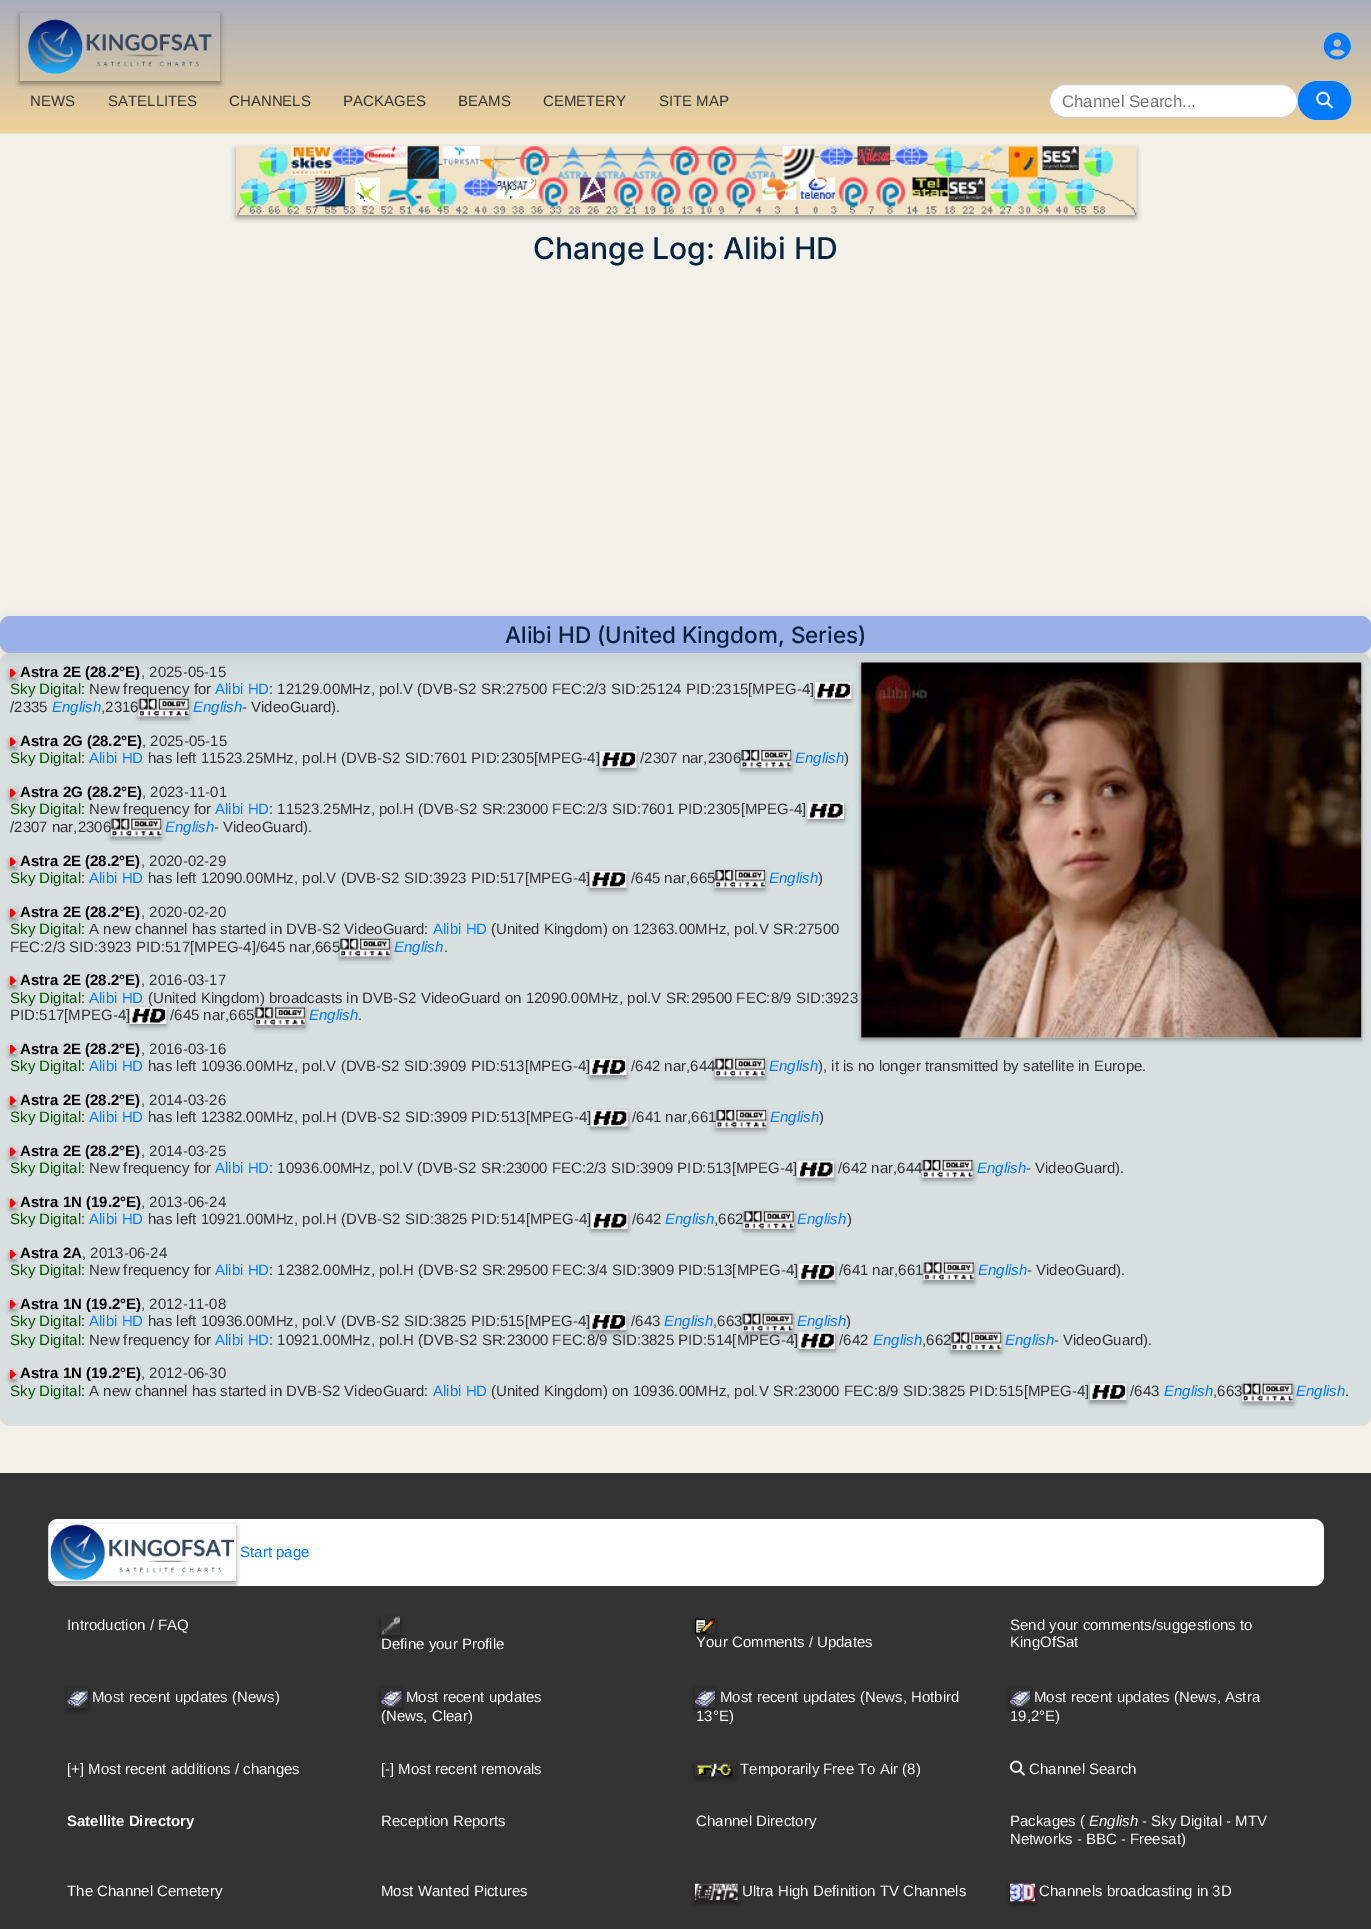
%!PS-Adobe-3.0
%%BoundingBox: 0 0 1371 1929
%%LanguageLevel: 3
%%Pages: 1
%%EndComments
%%BeginProlog
/setink { dup -16 bitshift 255 div exch dup -8 bitshift 255 and 255 div exch 255 and 255 div setrgbcolor } def
/usefont { [ exch dup neg 0 0 3 -1 roll 0 0 ] selectfont } def
/setalpha { dup .setfillconstantalpha .setstrokeconstantalpha } def
/rrect { 5 dict begin { /r /h /w /y /x } { exch def } forall
  x r add y moveto x w add y 2 copy h add r arct x w add y h add x 1 index r arct
  x y h add x y r arct x y 2 copy exch w add exch r arct closepath end } def
/softshadow { 12 dict begin { /a /b /q /h /w /y /x } { exch def } forall gsave /was 0 def
  9 -2 -9 { dup b mul 4 div /e exch def 1 sub .425 mul 2.718 exch exp 1 add a .99 .min exch div /now exch def
    1 1 now sub 1 was sub div sub setalpha /was now def
    w h .min e 2 mul add 0 gt { x e sub y e sub w e 2 mul add h e 2 mul add
      q e add b .6 mul add w h .min 2 div e add .min 0 .max rrect fill } if } for grestore end } def
/drawimage { 5 dict begin { /h /w /y /x /name } { exch def } forall
  gsave x y translate w h scale
  w h 8 [w 0 0 h 0 0] name (r) file false 3 colorimage grestore end } def
%%EndProlog
%%BeginSetup
<< /PageSize [1371 1929] /PageUsesTransparency true >> setpagedevice
%%EndSetup
%%Page: 1 1
0 .pushpdf14devicefilter
0 1929 translate 1 -1 scale
4 setmiterlimit
16#FFFFFF setink
0 0 1371 1929 rectfill
gsave 0 0 moveto 1371 0 lineto 1371 133 lineto 0 133 lineto closepath clip newpath
<< /ShadingType 2 /ColorSpace /DeviceRGB /Coords [686 0 686 133] /Extend [true true] /Function << /FunctionType 2 /Domain [0 1] /C0 [0.663 0.686 0.741] /C1 [0.945 0.824 0.6] /N 1 >> >> shfill grestore
16#DDDDDD setink
0 133 1371 1 rectfill
gsave
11 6 moveto 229 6 lineto 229 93 lineto 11 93 lineto closepath 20 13 moveto 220 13 lineto 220 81 lineto 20 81 lineto closepath eoclip newpath
16#000000 setink
20 15 200 69 0 2.5 0.35 softshadow
grestore
(img1.raw) 27 19 185 56 drawimage
(img2.raw) 1323 32 28 28 drawimage
/LiberationSans-Regular 15 usefont
16#333333 setink
[
    [(NEWS) 30 106]
    [(SATELLITES) 108 106]
    [(CHANNELS) 229 106]
    [(PACKAGES) 343 106]
    [(BEAMS) 458 106]
    [(CEMETERY) 543 106]
    [(SITE MAP) 659 106]
] { aload pop moveto show } forall
16#FFFFFF setink
1049.5 84.5 248 33 16.5 rrect gsave fill grestore
16#CCCCCC setink
stroke
/LiberationSans-Regular 16.75 usefont
16#757575 setink
1062 107 moveto (Channel Search...) show
16#007BFF setink
1298 81 53 39 19.5 rrect fill
(img3.raw) 1316 91 17 18 drawimage
16#F3F0E9 setink
0 134 1371 1339 rectfill
16#000000 setink
236 149 900 69 0 2.5 0.35 softshadow
(img4.raw) 236 146 901 69 drawimage
/Inter-Medium 30 usefont
16#042242 setink
533 259 moveto (Change Log: Alibi HD) show
16#D7DFDF setink
0 653 1371 773 10 rrect fill
gsave
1 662 moveto 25 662 lineto 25 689 lineto 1 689 lineto closepath 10 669 moveto 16 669 lineto 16 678 lineto 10 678 lineto closepath eoclip newpath
16#000000 setink
10 671 6 9 0 2.5 0.35 softshadow
grestore
(img5.raw) 10 668 7 10 drawimage
16#000000 setink
861 665 500 375 0 2.5 0.35 softshadow
(img8.raw) 861 662 501 376 drawimage
0 621 1371 37 10 7.5 0.08 softshadow
16#99B1E7 setink
0 616 1371 37 10 rrect fill
/Inter-Medium 22.5 usefont
16#042242 setink
505 643 moveto (Alibi HD \(United Kingdom, Series\)) show
/LiberationSans-Bold 15 usefont
16#000000 setink
20 677 moveto (Astra 2E \(28.2°E\)) show
/LiberationSans-Regular 15 usefont
16#333333 setink
141 677 moveto (, 2025-05-15) show
16#000000 setink
815 685 36 16 0 2.5 0.35 softshadow
16#005200 setink
10 694 moveto (Sky Digital) show
16#333333 setink
81 694 moveto (: New frequency for) show
16#007BFF setink
215 694 moveto (Alibi HD) show
16#333333 setink
269 694 moveto (: 12129.00MHz, pol.V \(DVB-S2 SR:27500 FEC:2/3 SID:25124 PID:2315[MPEG-4]) show
(img6.raw) 815 682 37 17 drawimage
16#000000 setink
139 701 50 18 0 2.5 0.35 softshadow
16#333333 setink
10 712 moveto (/2335) show
/LiberationSans-Italic 15 usefont
16#007BFF setink
52 712 moveto (English) show
/LiberationSans-Regular 15 usefont
16#333333 setink
101 712 moveto (,2316) show
(img7.raw) 138 698 51 19 drawimage
/LiberationSans-Italic 15 usefont
16#007BFF setink
193 712 moveto (English) show
/LiberationSans-Regular 15 usefont
16#333333 setink
242 712 moveto (- VideoGuard\).) show
gsave
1 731 moveto 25 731 lineto 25 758 lineto 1 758 lineto closepath 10 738 moveto 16 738 lineto 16 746 lineto 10 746 lineto closepath eoclip newpath
16#000000 setink
10 740 6 9 0 2.5 0.35 softshadow
grestore
/LiberationSans-Bold 15 usefont
16#000000 setink
20 746 moveto (Astra 2G \(28.2°E\)) show
/LiberationSans-Regular 15 usefont
16#333333 setink
142 746 moveto (, 2025-05-15) show
(img9.raw) 10 737 7 10 drawimage
16#000000 setink
600 754 36 16 0 2.5 0.35 softshadow
741 753 50 17 0 2.5 0.35 softshadow
16#005200 setink
10 763 moveto (Sky Digital) show
16#333333 setink
81 763 moveto (:) show
16#007BFF setink
89 763 moveto (Alibi HD) show
16#333333 setink
148 763 moveto (has left 11523.25MHz, pol.H \(DVB-S2 SID:7601 PID:2305[MPEG-4]) show
(img10.raw) 600 751 37 17 drawimage
640 763 moveto (/2307 nar,2306) show
(img11.raw) 741 750 51 18 drawimage
/LiberationSans-Italic 15 usefont
16#007BFF setink
795 763 moveto (English) show
/LiberationSans-Regular 15 usefont
16#333333 setink
844 763 moveto (\)) show
gsave
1 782 moveto 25 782 lineto 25 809 lineto 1 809 lineto closepath 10 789 moveto 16 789 lineto 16 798 lineto 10 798 lineto closepath eoclip newpath
16#000000 setink
10 791 6 9 0 2.5 0.35 softshadow
grestore
/LiberationSans-Bold 15 usefont
16#000000 setink
20 797 moveto (Astra 2G \(28.2°E\)) show
/LiberationSans-Regular 15 usefont
16#333333 setink
142 797 moveto (, 2023-11-01) show
(img5.raw) 10 788 7 10 drawimage
16#000000 setink
808 805 36 16 0 2.5 0.35 softshadow
16#005200 setink
10 814 moveto (Sky Digital) show
16#333333 setink
81 814 moveto (: New frequency for) show
16#007BFF setink
215 814 moveto (Alibi HD) show
16#333333 setink
269 814 moveto (: 11523.25MHz, pol.H \(DVB-S2 SR:23000 FEC:2/3 SID:7601 PID:2305[MPEG-4]) show
(img12.raw) 807 802 37 17 drawimage
16#000000 setink
111 821 50 18 0 2.5 0.35 softshadow
16#333333 setink
10 832 moveto (/2307 nar,2306) show
(img13.raw) 111 818 51 19 drawimage
/LiberationSans-Italic 15 usefont
16#007BFF setink
165 832 moveto (English) show
/LiberationSans-Regular 15 usefont
16#333333 setink
214 832 moveto (- VideoGuard\).) show
gsave
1 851 moveto 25 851 lineto 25 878 lineto 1 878 lineto closepath 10 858 moveto 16 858 lineto 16 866 lineto 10 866 lineto closepath eoclip newpath
16#000000 setink
10 860 6 9 0 2.5 0.35 softshadow
grestore
/LiberationSans-Bold 15 usefont
16#000000 setink
20 866 moveto (Astra 2E \(28.2°E\)) show
/LiberationSans-Regular 15 usefont
16#333333 setink
141 866 moveto (, 2020-02-29) show
(img9.raw) 10 857 7 10 drawimage
16#000000 setink
590 874 36 16 0 2.5 0.35 softshadow
715 873 50 17 0 2.5 0.35 softshadow
16#005200 setink
10 883 moveto (Sky Digital) show
16#333333 setink
81 883 moveto (:) show
16#007BFF setink
89 883 moveto (Alibi HD) show
16#333333 setink
148 883 moveto (has left 12090.00MHz, pol.V \(DVB-S2 SID:3923 PID:517[MPEG-4]) show
(img10.raw) 590 871 37 17 drawimage
631 883 moveto (/645 nar,665) show
(img14.raw) 715 870 50 18 drawimage
/LiberationSans-Italic 15 usefont
16#007BFF setink
769 883 moveto (English) show
/LiberationSans-Regular 15 usefont
16#333333 setink
818 883 moveto (\)) show
gsave
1 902 moveto 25 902 lineto 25 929 lineto 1 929 lineto closepath 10 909 moveto 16 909 lineto 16 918 lineto 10 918 lineto closepath eoclip newpath
16#000000 setink
10 911 6 9 0 2.5 0.35 softshadow
grestore
/LiberationSans-Bold 15 usefont
16#000000 setink
20 917 moveto (Astra 2E \(28.2°E\)) show
/LiberationSans-Regular 15 usefont
16#333333 setink
141 917 moveto (, 2020-02-20) show
(img5.raw) 10 908 7 10 drawimage
16#005200 setink
10 934 moveto (Sky Digital) show
16#333333 setink
81 934 moveto (: A new channel has started in DVB-S2 VideoGuard:) show
16#007BFF setink
433 934 moveto (Alibi HD) show
16#333333 setink
491 934 moveto (\(United Kingdom\) on 12363.00MHz, pol.V SR:27500) show
16#000000 setink
340 941 50 18 0 2.5 0.35 softshadow
16#333333 setink
10 952 moveto (FEC:2/3 SID:3923 PID:517[MPEG-4]/645 nar,665) show
(img15.raw) 340 938 50 19 drawimage
/LiberationSans-Italic 15 usefont
16#007BFF setink
394 952 moveto (English) show
/LiberationSans-Regular 15 usefont
16#333333 setink
444 952 moveto (.) show
gsave
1 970 moveto 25 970 lineto 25 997 lineto 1 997 lineto closepath 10 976 moveto 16 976 lineto 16 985 lineto 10 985 lineto closepath eoclip newpath
16#000000 setink
10 979 6 9 0 2.5 0.35 softshadow
grestore
/LiberationSans-Bold 15 usefont
16#000000 setink
20 985 moveto (Astra 2E \(28.2°E\)) show
/LiberationSans-Regular 15 usefont
16#333333 setink
141 985 moveto (, 2016-03-17) show
(img16.raw) 10 976 7 9 drawimage
16#005200 setink
10 1003 moveto (Sky Digital) show
16#333333 setink
81 1003 moveto (:) show
16#007BFF setink
89 1003 moveto (Alibi HD) show
16#333333 setink
148 1003 moveto (\(United Kingdom\) broadcasts in DVB-S2 VideoGuard on 12090.00MHz, pol.V SR:29500 FEC:8/9 SID:3923) show
16#000000 setink
130 1010 36 16 0 2.5 0.35 softshadow
255 1010 50 18 0 2.5 0.35 softshadow
16#333333 setink
10 1020 moveto (PID:517[MPEG-4]) show
(img17.raw) 130 1007 37 17 drawimage
170 1020 moveto (/645 nar,665) show
(img18.raw) 255 1007 50 18 drawimage
/LiberationSans-Italic 15 usefont
16#007BFF setink
309 1020 moveto (English) show
/LiberationSans-Regular 15 usefont
16#333333 setink
358 1020 moveto (.) show
gsave
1 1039 moveto 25 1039 lineto 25 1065 lineto 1 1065 lineto closepath 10 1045 moveto 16 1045 lineto 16 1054 lineto 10 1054 lineto closepath eoclip newpath
16#000000 setink
10 1048 6 8 0 2.5 0.35 softshadow
grestore
/LiberationSans-Bold 15 usefont
16#000000 setink
20 1054 moveto (Astra 2E \(28.2°E\)) show
/LiberationSans-Regular 15 usefont
16#333333 setink
141 1054 moveto (, 2016-03-16) show
(img19.raw) 10 1045 7 9 drawimage
16#000000 setink
590 1061 36 17 0 2.5 0.35 softshadow
715 1061 50 18 0 2.5 0.35 softshadow
16#005200 setink
10 1071 moveto (Sky Digital) show
16#333333 setink
81 1071 moveto (:) show
16#007BFF setink
89 1071 moveto (Alibi HD) show
16#333333 setink
148 1071 moveto (has left 10936.00MHz, pol.V \(DVB-S2 SID:3909 PID:513[MPEG-4]) show
(img20.raw) 590 1058 37 17 drawimage
631 1071 moveto (/642 nar,644) show
(img21.raw) 715 1058 50 19 drawimage
/LiberationSans-Italic 15 usefont
16#007BFF setink
769 1071 moveto (English) show
/LiberationSans-Regular 15 usefont
16#333333 setink
818 1071 moveto (\), it is no longer transmitted by satellite in Europe.) show
gsave
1 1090 moveto 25 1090 lineto 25 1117 lineto 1 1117 lineto closepath 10 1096 moveto 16 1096 lineto 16 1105 lineto 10 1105 lineto closepath eoclip newpath
16#000000 setink
10 1099 6 9 0 2.5 0.35 softshadow
grestore
/LiberationSans-Bold 15 usefont
16#000000 setink
20 1105 moveto (Astra 2E \(28.2°E\)) show
/LiberationSans-Regular 15 usefont
16#333333 setink
141 1105 moveto (, 2014-03-26) show
(img16.raw) 10 1096 7 9 drawimage
16#000000 setink
591 1113 37 16 0 2.5 0.35 softshadow
716 1113 50 17 0 2.5 0.35 softshadow
16#005200 setink
10 1122 moveto (Sky Digital) show
16#333333 setink
81 1122 moveto (:) show
16#007BFF setink
89 1122 moveto (Alibi HD) show
16#333333 setink
148 1122 moveto (has left 12382.00MHz, pol.H \(DVB-S2 SID:3909 PID:513[MPEG-4]) show
(img22.raw) 591 1110 37 17 drawimage
632 1122 moveto (/641 nar,661) show
(img11.raw) 716 1110 51 18 drawimage
/LiberationSans-Italic 15 usefont
16#007BFF setink
770 1122 moveto (English) show
/LiberationSans-Regular 15 usefont
16#333333 setink
819 1122 moveto (\)) show
gsave
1 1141 moveto 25 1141 lineto 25 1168 lineto 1 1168 lineto closepath 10 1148 moveto 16 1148 lineto 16 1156 lineto 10 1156 lineto closepath eoclip newpath
16#000000 setink
10 1150 6 9 0 2.5 0.35 softshadow
grestore
/LiberationSans-Bold 15 usefont
16#000000 setink
20 1156 moveto (Astra 2E \(28.2°E\)) show
/LiberationSans-Regular 15 usefont
16#333333 setink
141 1156 moveto (, 2014-03-25) show
(img9.raw) 10 1147 7 10 drawimage
16#000000 setink
798 1164 36 16 0 2.5 0.35 softshadow
923 1163 50 17 0 2.5 0.35 softshadow
16#005200 setink
10 1173 moveto (Sky Digital) show
16#333333 setink
81 1173 moveto (: New frequency for) show
16#007BFF setink
215 1173 moveto (Alibi HD) show
16#333333 setink
269 1173 moveto (: 10936.00MHz, pol.V \(DVB-S2 SR:23000 FEC:2/3 SID:3909 PID:513[MPEG-4]) show
(img23.raw) 797 1161 37 17 drawimage
838 1173 moveto (/642 nar,644) show
(img24.raw) 922 1160 51 18 drawimage
/LiberationSans-Italic 15 usefont
16#007BFF setink
977 1173 moveto (English) show
/LiberationSans-Regular 15 usefont
16#333333 setink
1026 1173 moveto (- VideoGuard\).) show
gsave
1 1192 moveto 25 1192 lineto 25 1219 lineto 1 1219 lineto closepath 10 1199 moveto 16 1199 lineto 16 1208 lineto 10 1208 lineto closepath eoclip newpath
16#000000 setink
10 1201 6 9 0 2.5 0.35 softshadow
grestore
/LiberationSans-Bold 15 usefont
16#000000 setink
20 1207 moveto (Astra 1N \(19.2°E\)) show
/LiberationSans-Regular 15 usefont
16#333333 setink
141 1207 moveto (, 2013-06-24) show
(img5.raw) 10 1198 7 10 drawimage
16#000000 setink
591 1215 37 16 0 2.5 0.35 softshadow
744 1214 50 17 0 2.5 0.35 softshadow
16#005200 setink
10 1224 moveto (Sky Digital) show
16#333333 setink
81 1224 moveto (:) show
16#007BFF setink
89 1224 moveto (Alibi HD) show
16#333333 setink
148 1224 moveto (has left 10921.00MHz, pol.H \(DVB-S2 SID:3825 PID:514[MPEG-4]) show
(img25.raw) 591 1212 37 17 drawimage
632 1224 moveto (/642) show
/LiberationSans-Italic 15 usefont
16#007BFF setink
665 1224 moveto (English) show
/LiberationSans-Regular 15 usefont
16#333333 setink
714 1224 moveto (,662) show
(img26.raw) 743 1211 51 18 drawimage
/LiberationSans-Italic 15 usefont
16#007BFF setink
797 1224 moveto (English) show
/LiberationSans-Regular 15 usefont
16#333333 setink
847 1224 moveto (\)) show
gsave
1 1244 moveto 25 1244 lineto 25 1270 lineto 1 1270 lineto closepath 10 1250 moveto 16 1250 lineto 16 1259 lineto 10 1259 lineto closepath eoclip newpath
16#000000 setink
10 1253 6 8 0 2.5 0.35 softshadow
grestore
/LiberationSans-Bold 15 usefont
16#000000 setink
20 1258 moveto (Astra 2A) show
/LiberationSans-Regular 15 usefont
16#333333 setink
82 1258 moveto (, 2013-06-24) show
(img19.raw) 10 1250 7 9 drawimage
16#000000 setink
799 1266 36 17 0 2.5 0.35 softshadow
924 1265 50 18 0 2.5 0.35 softshadow
16#005200 setink
10 1275 moveto (Sky Digital) show
16#333333 setink
81 1275 moveto (: New frequency for) show
16#007BFF setink
215 1275 moveto (Alibi HD) show
16#333333 setink
269 1275 moveto (: 12382.00MHz, pol.H \(DVB-S2 SR:29500 FEC:3/4 SID:3909 PID:513[MPEG-4]) show
(img27.raw) 798 1263 37 17 drawimage
839 1275 moveto (/641 nar,661) show
(img28.raw) 923 1262 51 18 drawimage
/LiberationSans-Italic 15 usefont
16#007BFF setink
978 1275 moveto (English) show
/LiberationSans-Regular 15 usefont
16#333333 setink
1027 1275 moveto (- VideoGuard\).) show
gsave
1 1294 moveto 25 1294 lineto 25 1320 lineto 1 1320 lineto closepath 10 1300 moveto 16 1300 lineto 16 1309 lineto 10 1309 lineto closepath eoclip newpath
16#000000 setink
10 1303 6 8 0 2.5 0.35 softshadow
grestore
/LiberationSans-Bold 15 usefont
16#000000 setink
20 1309 moveto (Astra 1N \(19.2°E\)) show
/LiberationSans-Regular 15 usefont
16#333333 setink
141 1309 moveto (, 2012-11-08) show
(img19.raw) 10 1300 7 9 drawimage
16#000000 setink
590 1316 36 17 0 2.5 0.35 softshadow
743 1316 50 18 0 2.5 0.35 softshadow
16#005200 setink
10 1326 moveto (Sky Digital) show
16#333333 setink
81 1326 moveto (:) show
16#007BFF setink
89 1326 moveto (Alibi HD) show
16#333333 setink
148 1326 moveto (has left 10936.00MHz, pol.V \(DVB-S2 SID:3825 PID:515[MPEG-4]) show
(img20.raw) 590 1313 37 17 drawimage
631 1326 moveto (/643) show
/LiberationSans-Italic 15 usefont
16#007BFF setink
664 1326 moveto (English) show
/LiberationSans-Regular 15 usefont
16#333333 setink
713 1326 moveto (,663) show
(img29.raw) 742 1313 51 19 drawimage
/LiberationSans-Italic 15 usefont
16#007BFF setink
797 1326 moveto (English) show
/LiberationSans-Regular 15 usefont
16#333333 setink
846 1326 moveto (\)) show
16#000000 setink
799 1335 36 16 0 2.5 0.35 softshadow
951 1335 50 18 0 2.5 0.35 softshadow
16#005200 setink
10 1345 moveto (Sky Digital) show
16#333333 setink
81 1345 moveto (: New frequency for) show
16#007BFF setink
215 1345 moveto (Alibi HD) show
16#333333 setink
269 1345 moveto (: 10921.00MHz, pol.H \(DVB-S2 SR:23000 FEC:8/9 SID:3825 PID:514[MPEG-4]) show
(img30.raw) 798 1332 37 17 drawimage
839 1345 moveto (/642) show
/LiberationSans-Italic 15 usefont
16#007BFF setink
873 1345 moveto (English) show
/LiberationSans-Regular 15 usefont
16#333333 setink
922 1345 moveto (,662) show
(img31.raw) 951 1332 51 18 drawimage
/LiberationSans-Italic 15 usefont
16#007BFF setink
1005 1345 moveto (English) show
/LiberationSans-Regular 15 usefont
16#333333 setink
1054 1345 moveto (- VideoGuard\).) show
gsave
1 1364 moveto 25 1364 lineto 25 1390 lineto 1 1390 lineto closepath 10 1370 moveto 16 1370 lineto 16 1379 lineto 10 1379 lineto closepath eoclip newpath
16#000000 setink
10 1373 6 8 0 2.5 0.35 softshadow
grestore
/LiberationSans-Bold 15 usefont
16#000000 setink
20 1378 moveto (Astra 1N \(19.2°E\)) show
/LiberationSans-Regular 15 usefont
16#333333 setink
141 1378 moveto (, 2012-06-30) show
(img19.raw) 10 1370 7 9 drawimage
16#000000 setink
1090 1386 36 17 0 2.5 0.35 softshadow
1243 1386 50 18 0 2.5 0.35 softshadow
16#005200 setink
10 1396 moveto (Sky Digital) show
16#333333 setink
81 1396 moveto (: A new channel has started in DVB-S2 VideoGuard:) show
16#007BFF setink
433 1396 moveto (Alibi HD) show
16#333333 setink
491 1396 moveto (\(United Kingdom\) on 10936.00MHz, pol.V SR:23000 FEC:8/9 SID:3825 PID:515[MPEG-4]) show
(img20.raw) 1090 1383 37 17 drawimage
1130 1396 moveto (/643) show
/LiberationSans-Italic 15 usefont
16#007BFF setink
1164 1396 moveto (English) show
/LiberationSans-Regular 15 usefont
16#333333 setink
1213 1396 moveto (,663) show
(img32.raw) 1242 1383 51 19 drawimage
/LiberationSans-Italic 15 usefont
16#007BFF setink
1296 1396 moveto (English) show
/LiberationSans-Regular 15 usefont
16#333333 setink
1345 1396 moveto (.) show
0 1473 1371 456 rectfill
16#FFFFFF setink
48 1519 1276 67 10 rrect fill
gsave
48 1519 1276 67 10 rrect clip newpath
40 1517 moveto 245 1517 lineto 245 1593 lineto 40 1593 lineto closepath 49 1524 moveto 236 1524 lineto 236 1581 lineto 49 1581 lineto closepath eoclip newpath
16#000000 setink
49 1526 187 58 0 2.5 0.35 softshadow
grestore
(img33.raw) 50 1524 185 57 drawimage
16#007BFF setink
240 1557 moveto (Start page) show
16#FFFFFF setink
67 1630 moveto (Introduction / FAQ) show
gsave
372 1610 moveto 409 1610 lineto 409 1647 lineto 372 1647 lineto closepath 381 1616 moveto 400 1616 lineto 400 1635 lineto 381 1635 lineto closepath eoclip newpath
16#000000 setink
381 1619 19 19 0 2.5 0.35 softshadow
grestore
(img34.raw) 381 1616 19 19 drawimage
381 1649 moveto (Define your Profile) show
gsave
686 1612 moveto 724 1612 lineto 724 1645 lineto 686 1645 lineto closepath 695 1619 moveto 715 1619 lineto 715 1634 lineto 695 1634 lineto closepath eoclip newpath
16#000000 setink
695 1621 20 15 0 2.5 0.35 softshadow
grestore
(img35.raw) 695 1618 20 16 drawimage
[
    [(Your Comments / Updates) 696 1647]
    [(Send your comments/suggestions to) 1010 1630]
    [(KingOfSat) 1010 1647]
] { aload pop moveto show } forall
gsave
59 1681 moveto 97 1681 lineto 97 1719 lineto 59 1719 lineto closepath 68 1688 moveto 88 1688 lineto 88 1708 lineto 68 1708 lineto closepath eoclip newpath
16#000000 setink
68 1690 20 20 0 2.5 0.35 softshadow
grestore
(img36.raw) 67 1691 21 16 drawimage
92 1702 moveto (Most recent updates \(News\)) show
gsave
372 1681 moveto 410 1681 lineto 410 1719 lineto 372 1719 lineto closepath 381 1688 moveto 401 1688 lineto 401 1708 lineto 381 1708 lineto closepath eoclip newpath
16#000000 setink
381 1690 20 20 0 2.5 0.35 softshadow
grestore
(img37.raw) 381 1691 21 16 drawimage
406 1702 moveto (Most recent updates) show
381 1721 moveto (\(News, Clear\)) show
gsave
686 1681 moveto 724 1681 lineto 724 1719 lineto 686 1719 lineto closepath 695 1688 moveto 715 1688 lineto 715 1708 lineto 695 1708 lineto closepath eoclip newpath
16#000000 setink
695 1690 20 20 0 2.5 0.35 softshadow
grestore
(img38.raw) 695 1691 20 16 drawimage
720 1702 moveto (Most recent updates \(News, Hotbird) show
696 1721 moveto (13°E\)) show
gsave
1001 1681 moveto 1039 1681 lineto 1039 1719 lineto 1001 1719 lineto closepath 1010 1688 moveto 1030 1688 lineto 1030 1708 lineto 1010 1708 lineto closepath eoclip newpath
16#000000 setink
1010 1690 20 20 0 2.5 0.35 softshadow
grestore
(img39.raw) 1010 1691 20 16 drawimage
[
    [(Most recent updates \(News, Astra) 1034 1702]
    [(19,2°E\)) 1010 1721]
    [([+] Most recent additions / changes) 67 1774]
    [([-] Most recent removals) 381 1774]
] { aload pop moveto show } forall
gsave
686 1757 moveto 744 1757 lineto 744 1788 lineto 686 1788 lineto closepath 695 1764 moveto 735 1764 lineto 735 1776 lineto 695 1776 lineto closepath eoclip newpath
16#000000 setink
695 1766 40 13 0 2.5 0.35 softshadow
grestore
(img40.raw) 697 1763 36 14 drawimage
740 1774 moveto (Temporarily Free To Air \(8\)) show
(img41.raw) 1010 1760 15 16 drawimage
1029 1774 moveto (Channel Search) show
/LiberationSans-Bold 15 usefont
67 1826 moveto (Satellite Directory) show
/LiberationSans-Regular 15 usefont
[
    [(Reception Reports) 381 1826]
    [(Channel Directory) 696 1826]
    [(Packages \() 1010 1826]
] { aload pop moveto show } forall
/LiberationSans-Italic 15 usefont
1089 1826 moveto (English) show
/LiberationSans-Regular 15 usefont
[
    [(- Sky Digital - MTV) 1142 1826]
    [(Networks - BBC - Freesat\)) 1010 1844]
    [(The Channel Cemetery) 67 1896]
    [(Most Wanted Pictures) 381 1896]
] { aload pop moveto show } forall
16#000000 setink
695 1886 43 17 0 2.5 0.35 softshadow
(img42.raw) 695 1883 43 17 drawimage
16#FFFFFF setink
742 1896 moveto (Ultra High Definition TV Channels) show
16#000000 setink
1010 1886 25 18 0 2.5 0.35 softshadow
(img43.raw) 1010 1883 25 19 drawimage
16#FFFFFF setink
1039 1896 moveto (Channels broadcasting in 3D) show
.poppdf14devicefilter showpage
%%EOF
